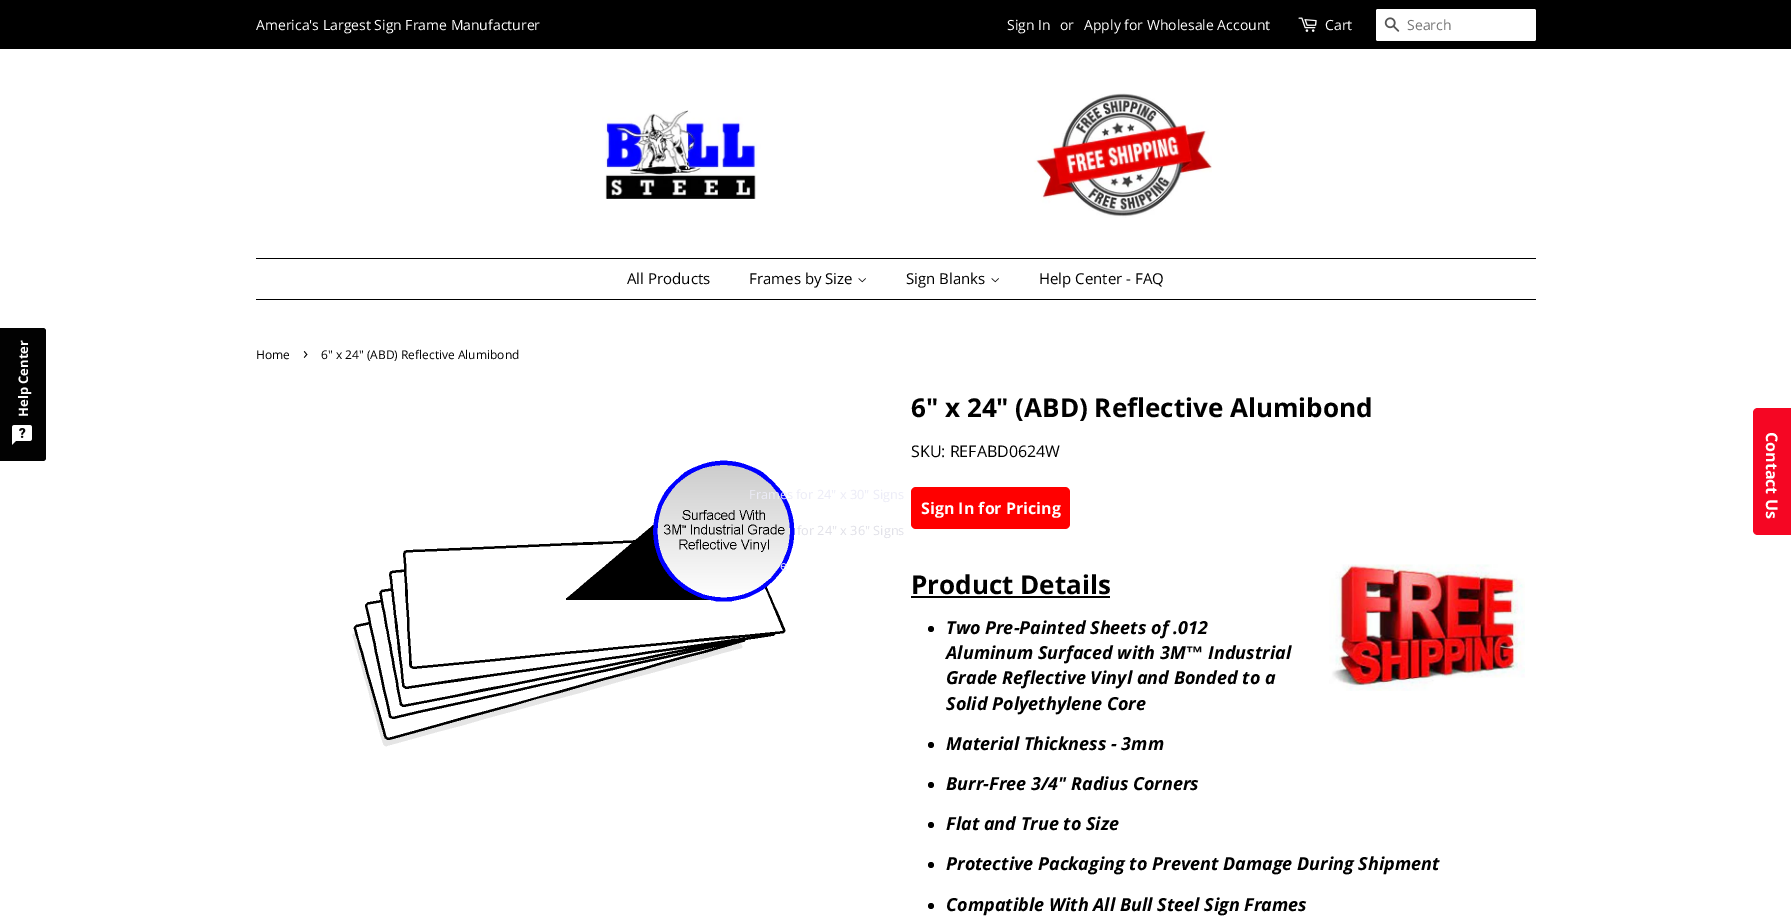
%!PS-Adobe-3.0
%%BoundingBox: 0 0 1791 922
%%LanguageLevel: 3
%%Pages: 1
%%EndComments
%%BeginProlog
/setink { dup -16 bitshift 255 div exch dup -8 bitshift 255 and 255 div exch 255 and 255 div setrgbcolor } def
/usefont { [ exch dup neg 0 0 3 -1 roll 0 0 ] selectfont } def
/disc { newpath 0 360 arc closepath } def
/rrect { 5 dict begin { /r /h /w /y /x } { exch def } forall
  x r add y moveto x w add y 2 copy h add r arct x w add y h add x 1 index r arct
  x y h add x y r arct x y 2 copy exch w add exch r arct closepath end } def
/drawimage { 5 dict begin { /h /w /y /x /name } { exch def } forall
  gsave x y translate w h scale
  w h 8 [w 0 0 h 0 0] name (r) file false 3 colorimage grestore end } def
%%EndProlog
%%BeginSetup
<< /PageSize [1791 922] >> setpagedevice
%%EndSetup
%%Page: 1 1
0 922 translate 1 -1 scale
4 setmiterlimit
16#FFFFFF setink
0 0 1791 922 rectfill
16#020202 setink
0 328 moveto 43 328 lineto 44.5 328 46 329.5 46 331 curveto 46 458 lineto 46 459.5 44.5 461 43 461 curveto 0 461 lineto closepath fill
/OpenSans-Bold 13 usefont
16#FFFFFF setink
gsave 28 417 translate -90 rotate 0 0 moveto (Help Center) show grestore
(img1.raw) 12 425 20 20 drawimage
16#000000 setink
0 0 1791 49 rectfill
/OpenSans-Regular 14 usefont
16#FFFFFF setink
[
    [(America's Largest Sign Frame Manufacturer) 256 30]
    [(Sign In) 1007 30]
    [(or) 1060 30]
    [(Apply for Wholesale Account) 1084 30]
] { aload pop moveto show } forall
(img2.raw) 1298 17 19 15 drawimage
1325 30 moveto (Cart) show
1376 9 160 32 2 rrect fill
(img3.raw) 1384 17 16 15 drawimage
16#757575 setink
1407 30 moveto (Search) show
(img4.raw) 602 93 610 125 drawimage
16#000000 setink
256 258 1280 1 rectfill
256 299 1280 1 rectfill
/OpenSans-Regular 15 usefont
627 284 moveto (All Products) show
749 284 moveto (Frames by Size) show
(img5.raw) 858 278 8 5 drawimage
(img6.raw) 352 460 443 287 drawimage
/OpenSans-Regular 12.75 usefont
16#ECECF7 setink
749 499 moveto (Frames for 24" x 30" Signs) show
16#E1E1E8 setink
797 535 moveto (for 24" x 36" Signs) show
16#ECECF7 setink
780 570 moveto (e) show
/OpenSans-Regular 15 usefont
16#000000 setink
906 284 moveto (Sign Blanks) show
(img5.raw) 991 278 8 5 drawimage
1039 284 moveto (Help Center - FAQ) show
/OpenSans-Regular 12 usefont
256 359 moveto (Home) show
/OpenSans-Regular 17 usefont
303 359 moveto (›) show
/OpenSans-Regular 12 usefont
321 359 moveto (6" x 24" \(ABD\) Reflective Alumibond) show
/OpenSans-Bold 26 usefont
911 417 moveto (6" x 24" \(ABD\) Reflective Alumibond) show
/OpenSans-Regular 16 usefont
911 457 moveto (SKU: REFABD0624W) show
16#FF0000 setink
911 487 159 42 5 rrect fill
/OpenSans-Bold 16 usefont
16#FFFFFF setink
921 514 moveto (Sign In for Pricing) show
/OpenSans-Bold 26 usefont
16#000000 setink
911 594 moveto (Product Details) show
911 596 199 2 rectfill
(img7.raw) 1329 564 196 127 drawimage
931 629 3 disc fill
/OpenSans-BoldItalic 18 usefont
946 634 moveto (Two Pre-Painted Sheets of .012) show
946 659 moveto (Aluminum Surfaced with 3M) show
/LiberationSans-BoldItalic 18 usefont
1185 659 moveto (™) show
/OpenSans-BoldItalic 18 usefont
[
    [(Industrial) 1208 659]
    [(Grade Reflective Vinyl and Bonded to a) 946 684]
    [(Solid Polyethylene Core) 946 710]
] { aload pop moveto show } forall
931 745 3 disc fill
946 750 moveto (Material Thickness - 3mm) show
931 785 3 disc fill
946 790 moveto (Burr-Free 3/4" Radius Corners) show
931 825 3 disc fill
946 830 moveto (Flat and True to Size) show
931 865 3 disc fill
946 870 moveto (Protective Packaging to Prevent Damage During Shipment) show
931 906 3 disc fill
946 911 moveto (Compatible With All Bull Steel Sign Frames) show
16#F50623 setink
1791 408 moveto 1791 535 lineto 1758 535 lineto 1755 535 1753 533 1753 530 curveto 1753 413 lineto 1753 410 1755 408 1758 408 curveto closepath fill
/OpenSans-Bold 16 usefont
16#FFFFFF setink
gsave 1766 432 translate 90 rotate 0 0 moveto (Contact Us) show grestore
showpage
%%EOF
